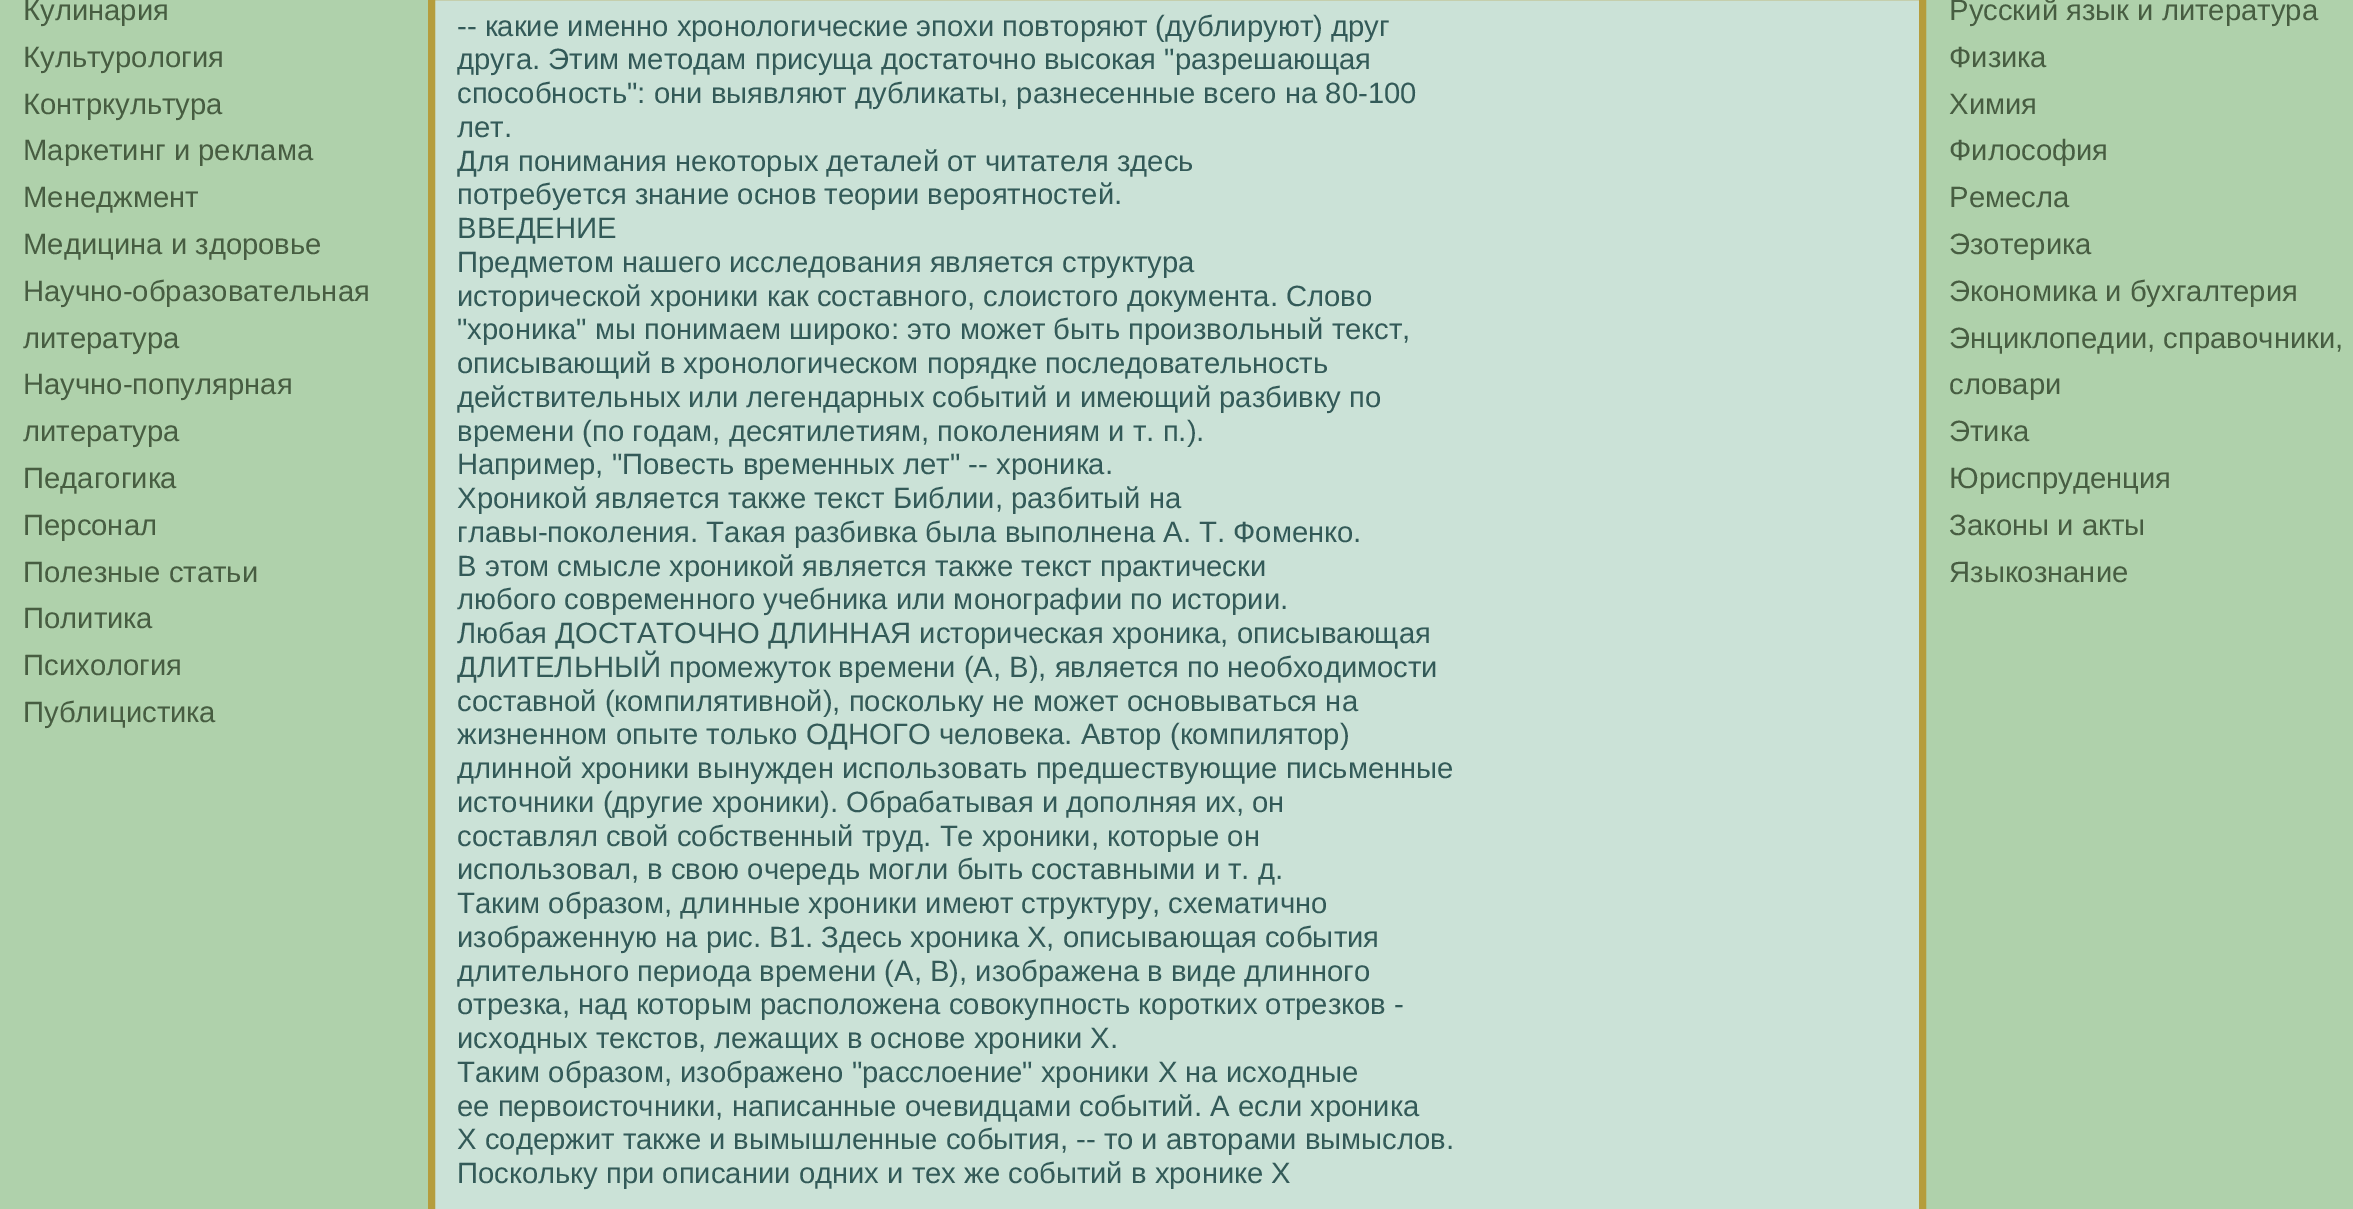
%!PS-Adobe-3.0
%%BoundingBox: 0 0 2353 1209
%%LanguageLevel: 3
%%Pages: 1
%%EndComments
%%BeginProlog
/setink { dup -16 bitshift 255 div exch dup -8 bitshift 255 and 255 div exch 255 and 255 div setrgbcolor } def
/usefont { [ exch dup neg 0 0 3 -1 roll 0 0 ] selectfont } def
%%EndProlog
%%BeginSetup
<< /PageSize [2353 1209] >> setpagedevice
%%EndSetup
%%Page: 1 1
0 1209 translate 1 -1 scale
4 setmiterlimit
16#AFD1AB setink
0 0 2353 1209 rectfill
/LiberationSans-Regular 29.25 usefont
16#475D41 setink
[
    [(Кулинария) 23 20]
    [(Культурология) 23 67]
    [(Контркультура) 23 114]
    [(Маркетинг и реклама) 23 160]
    [(Менеджмент) 23 207]
    [(Медицина и здоровье) 23 254]
    [(Научно-образовательная) 23 301]
    [(литература) 23 348]
    [(Научно-популярная) 23 394]
    [(литература) 23 441]
    [(Педагогика) 23 488]
    [(Персонал) 23 535]
    [(Полезные статьи) 23 582]
    [(Политика) 23 628]
    [(Психология) 23 675]
    [(Публицистика) 23 722]
] { aload pop moveto show } forall
16#CBE2D7 setink
431.5 -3.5 moveto 1922.5 -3.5 lineto 1922.5 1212.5 lineto 431.5 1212.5 lineto closepath gsave fill grestore
16#B59D3C setink
7 setlinewidth
stroke
16#335A58 setink
[
    [(-- какие именно хронологические эпохи повторяют \(дублируют\) друг) 457 36]
    [(друга. Этим методам присуща достаточно высокая "разрешающая) 457 69]
    [(способность": они выявляют дубликаты, разнесенные всего на 80-100) 457 103]
    [(лет.) 457 137]
    [(Для понимания некоторых деталей от читателя здесь) 457 171]
    [(потребуется знание основ теории вероятностей.) 457 204]
    [(ВВЕДЕНИЕ) 457 238]
    [(Предметом нашего исследования является структура) 457 272]
    [(исторической хроники как составного, слоистого документа. Слово) 457 306]
    [("хроника" мы понимаем широко: это может быть произвольный текст,) 457 339]
    [(описывающий в хронологическом порядке последовательность) 457 373]
    [(действительных или легендарных событий и имеющий разбивку по) 457 407]
    [(времени \(по годам, десятилетиям, поколениям и т. п.\).) 457 441]
    [(Например, "Повесть временных лет" -- хроника.) 457 474]
    [(Хроникой является также текст Библии, разбитый на) 457 508]
    [(главы-поколения. Такая разбивка была выполнена А. Т. Фоменко.) 457 542]
    [(В этом смысле хроникой является также текст практически) 457 576]
    [(любого современного учебника или монографии по истории.) 457 609]
    [(Любая ДОСТАТОЧНО ДЛИННАЯ историческая хроника, описывающая) 457 643]
    [(ДЛИТЕЛЬНЫЙ промежуток времени \(А, В\), является по необходимости) 457 677]
    [(составной \(компилятивной\), поскольку не может основываться на) 457 711]
    [(жизненном опыте только ОДНОГО человека. Автор \(компилятор\)) 457 744]
    [(длинной хроники вынужден использовать предшествующие письменные) 457 778]
    [(источники \(другие хроники\). Обрабатывая и дополняя их, он) 457 812]
    [(составлял свой собственный труд. Те хроники, которые он) 457 846]
    [(использовал, в свою очередь могли быть составными и т. д.) 457 879]
    [(Таким образом, длинные хроники имеют структуру, схематично) 457 913]
    [(изображенную на рис. В1. Здесь хроника Х, описывающая события) 457 947]
    [(длительного периода времени \(А, В\), изображена в виде длинного) 457 981]
    [(отрезка, над которым расположена совокупность коротких отрезков -) 457 1014]
    [(исходных текстов, лежащих в основе хроники Х.) 457 1048]
    [(Таким образом, изображено "расслоение" хроники Х на исходные) 457 1082]
    [(ее первоисточники, написанные очевидцами событий. А если хроника) 457 1116]
    [(Х содержит также и вымышленные события, -- то и авторами вымыслов.) 457 1149]
    [(Поскольку при описании одних и тех же событий в хронике Х) 457 1183]
] { aload pop moveto show } forall
16#475D41 setink
[
    [(Русский язык и литература) 1949 20]
    [(Физика) 1949 67]
    [(Химия) 1949 114]
    [(Философия) 1949 160]
    [(Ремесла) 1949 207]
    [(Эзотерика) 1949 254]
    [(Экономика и бухгалтерия) 1949 301]
    [(Энциклопедии, справочники,) 1949 348]
    [(словари) 1949 394]
    [(Этика) 1949 441]
    [(Юриспруденция) 1949 488]
    [(Законы и акты) 1949 535]
    [(Языкознание) 1949 582]
] { aload pop moveto show } forall
showpage
%%EOF
